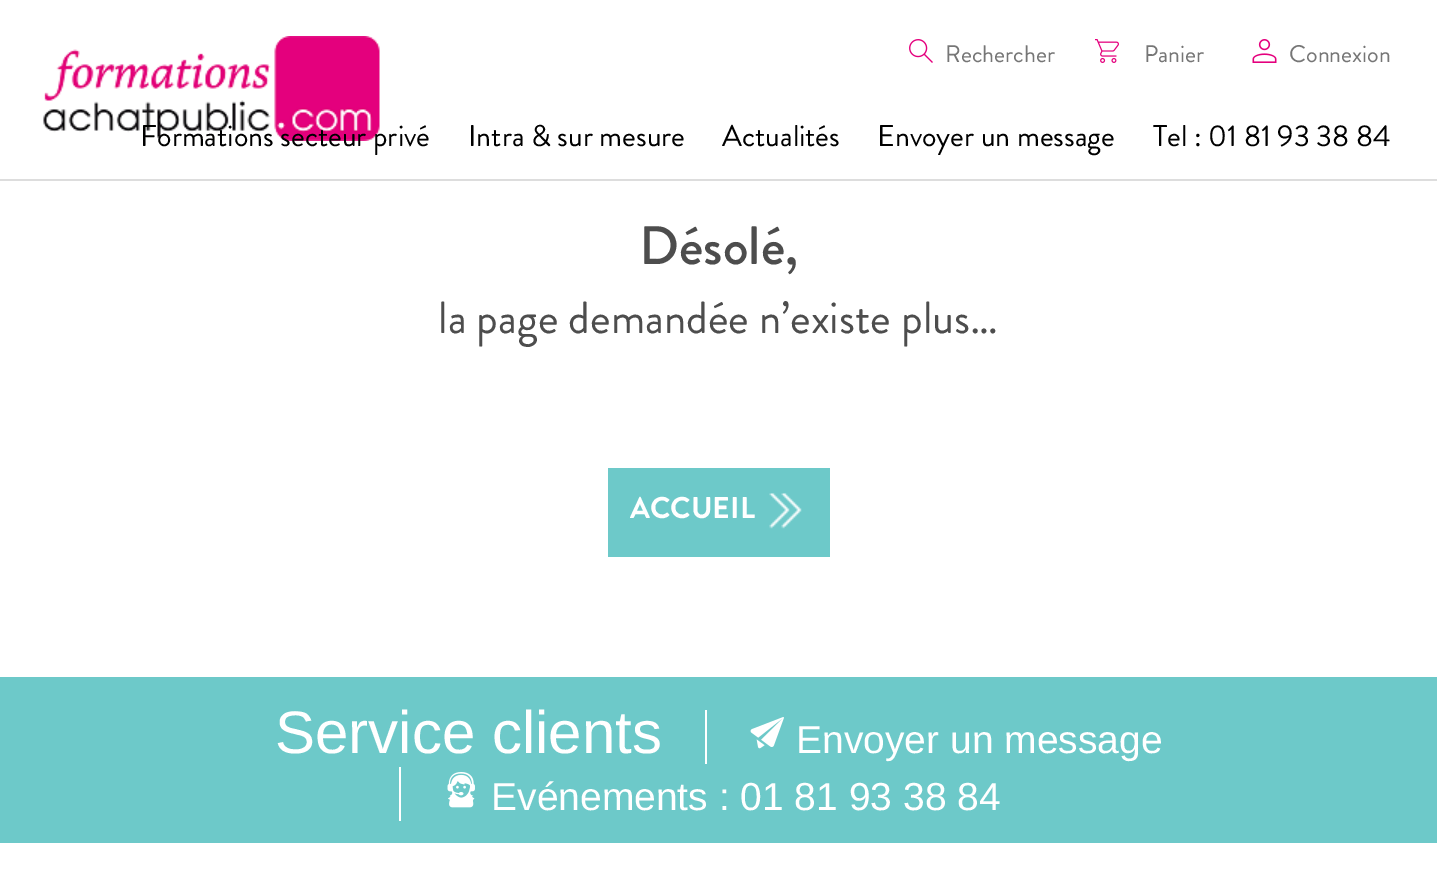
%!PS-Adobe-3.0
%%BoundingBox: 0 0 1437 890
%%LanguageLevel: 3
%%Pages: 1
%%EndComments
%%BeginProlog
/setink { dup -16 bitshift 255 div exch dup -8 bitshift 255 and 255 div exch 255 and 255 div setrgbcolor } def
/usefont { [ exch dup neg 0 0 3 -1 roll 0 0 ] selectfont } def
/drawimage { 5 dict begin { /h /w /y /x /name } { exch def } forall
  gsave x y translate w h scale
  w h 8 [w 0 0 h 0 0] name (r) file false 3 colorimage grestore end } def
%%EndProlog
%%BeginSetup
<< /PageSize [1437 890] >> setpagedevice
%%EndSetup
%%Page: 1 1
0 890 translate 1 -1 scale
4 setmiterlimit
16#FFFFFF setink
0 0 1437 890 rectfill
16#DDDDDD setink
0 179 1437 2 rectfill
(img1.raw) 43 36 337 105 drawimage
(img2.raw) 909 39 24 24 drawimage
/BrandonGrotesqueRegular-Regular 24 usefont
16#767676 setink
945 62 moveto (Rechercher) show
(img3.raw) 1095 39 24 24 drawimage
1144 62 moveto (Panier) show
(img4.raw) 1252 39 25 24 drawimage
1289 62 moveto (Connexion) show
/BrandonGrotesqueRegular-Regular 30 usefont
16#000000 setink
[
    [(Formations secteur privé) 140 146]
    [(Intra & sur mesure) 468 146]
    [(Actualités) 722 146]
    [(Envoyer un message) 877 146]
    [(Tel : 01 81 93 38 84) 1153 146]
] { aload pop moveto show } forall
/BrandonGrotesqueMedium-Regular 54 usefont
16#4D4D4D setink
639 264 moveto (Désolé,) show
/BrandonGrotesqueRegular-Regular 45 usefont
438 333 moveto (la page demandée n’existe plus…) show
16#6DC9C9 setink
608 468 222 89 rectfill
/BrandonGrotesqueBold-Regular 30 usefont
16#FFFFFF setink
630 518 moveto (ACCUEIL) show
(img5.raw) 769 493 33 36 drawimage
16#6DC9C9 setink
0 677 1437 166 rectfill
/LiberationSans-Regular 60 usefont
16#FFFFFF setink
275 753 moveto (Service clients) show
705 710 2 54 rectfill
(img6.raw) 750 717 34 32 drawimage
/LiberationSans-Regular 39 usefont
796 753 moveto (Envoyer un message) show
399 767 2 54 rectfill
(img7.raw) 447 772 28 36 drawimage
491 810 moveto (Evénements : 01 81 93 38 84) show
showpage
%%EOF
